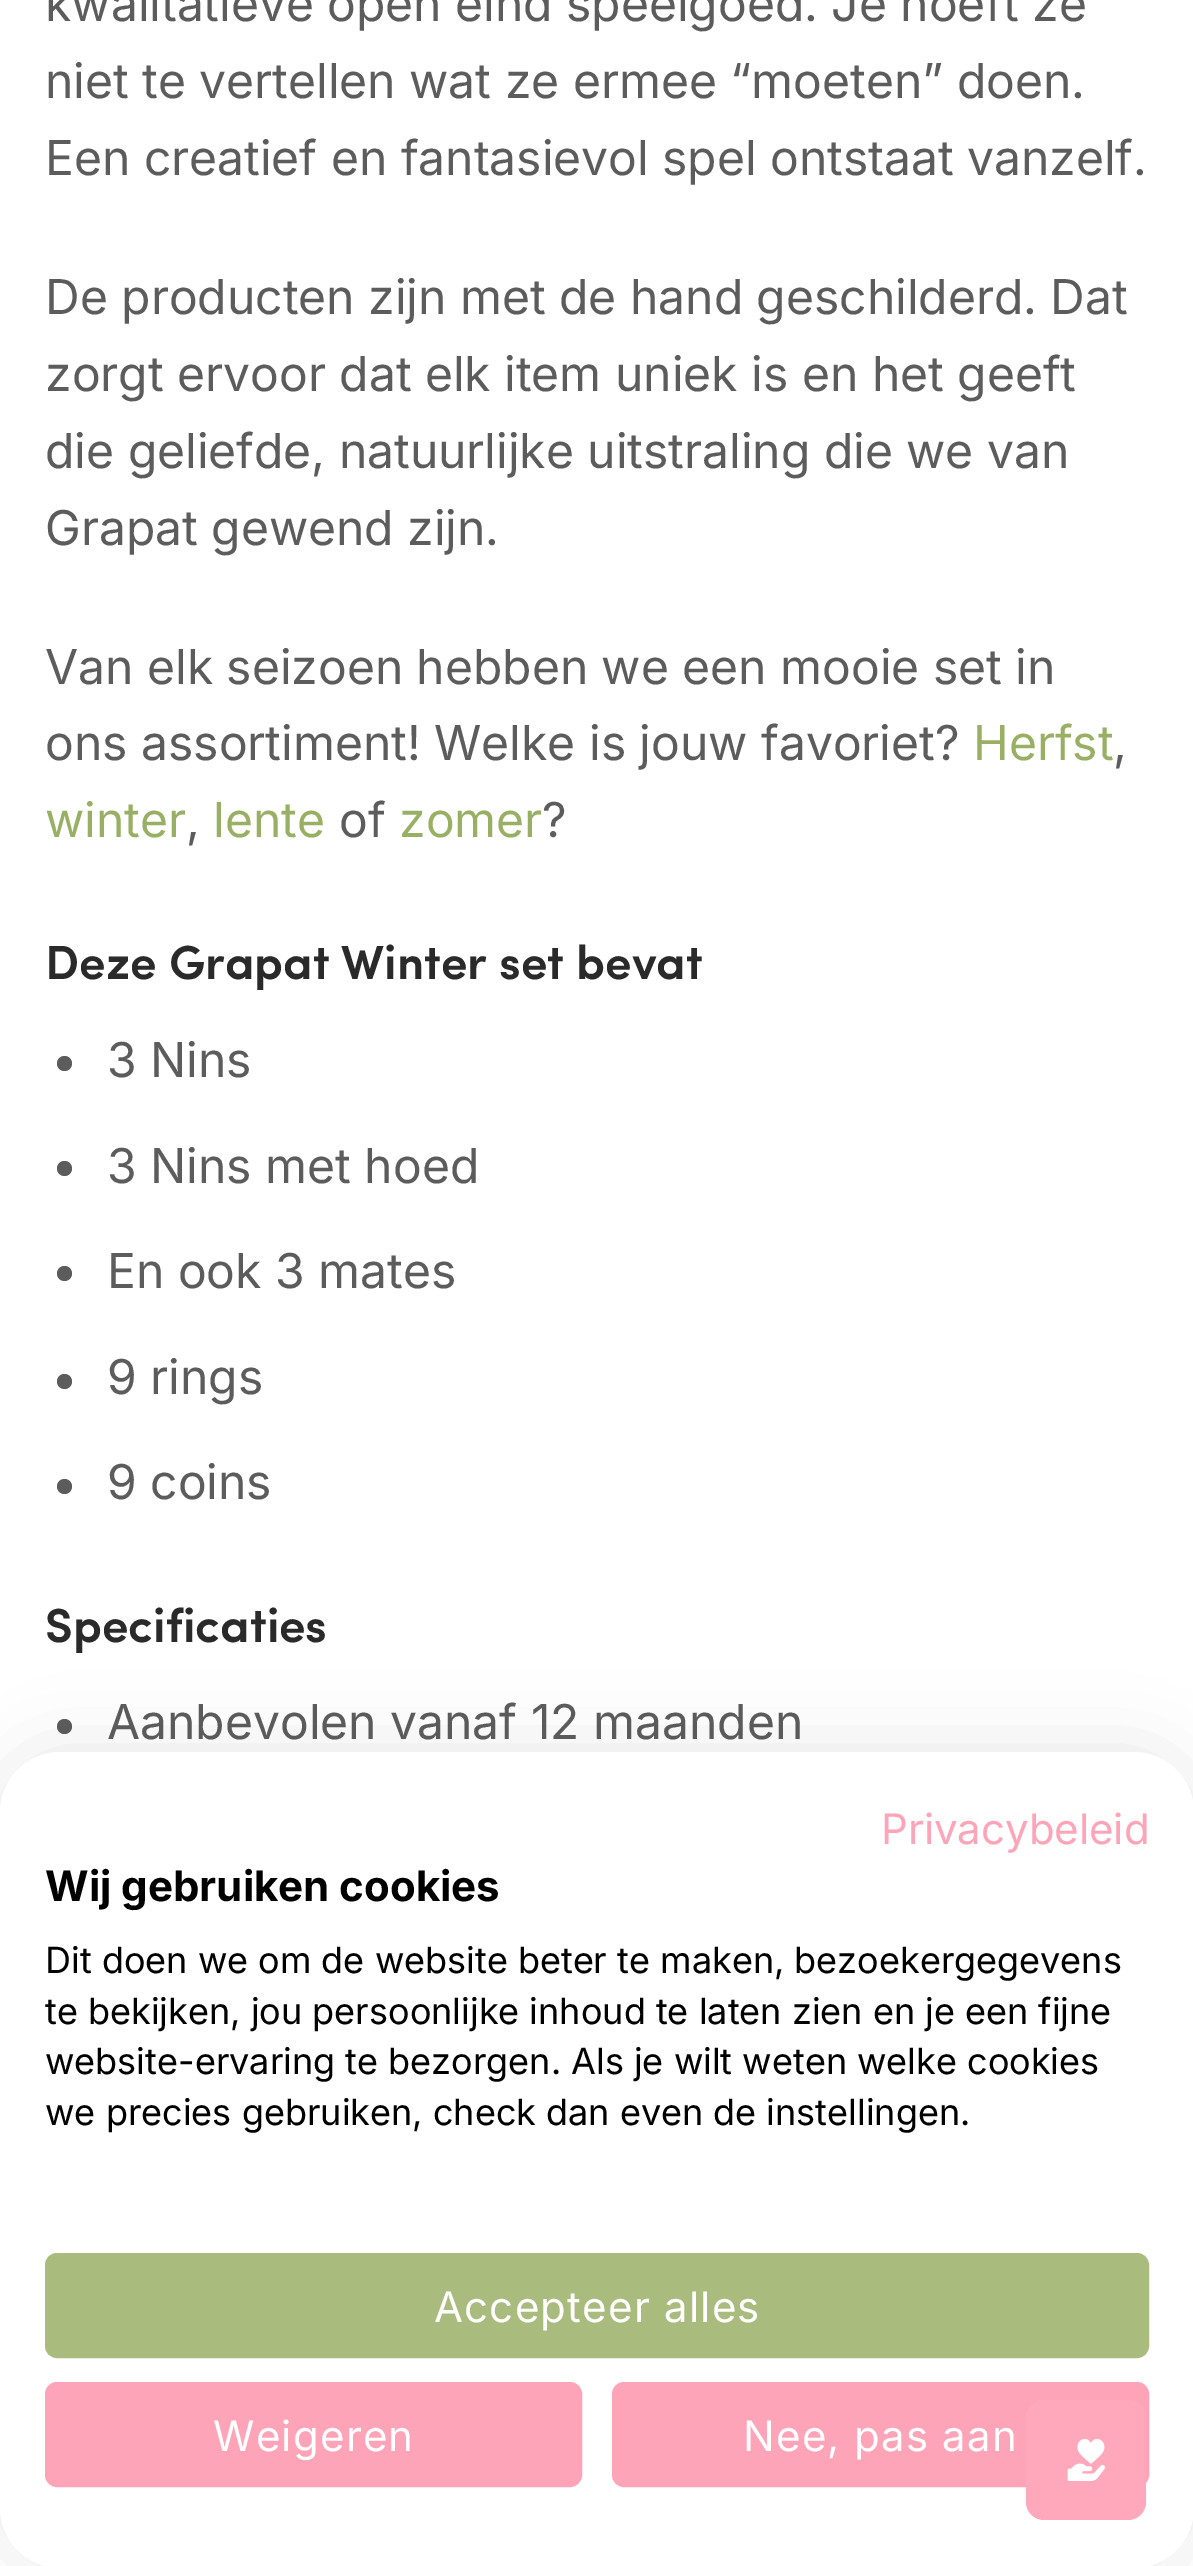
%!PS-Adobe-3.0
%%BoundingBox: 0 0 1193 2566
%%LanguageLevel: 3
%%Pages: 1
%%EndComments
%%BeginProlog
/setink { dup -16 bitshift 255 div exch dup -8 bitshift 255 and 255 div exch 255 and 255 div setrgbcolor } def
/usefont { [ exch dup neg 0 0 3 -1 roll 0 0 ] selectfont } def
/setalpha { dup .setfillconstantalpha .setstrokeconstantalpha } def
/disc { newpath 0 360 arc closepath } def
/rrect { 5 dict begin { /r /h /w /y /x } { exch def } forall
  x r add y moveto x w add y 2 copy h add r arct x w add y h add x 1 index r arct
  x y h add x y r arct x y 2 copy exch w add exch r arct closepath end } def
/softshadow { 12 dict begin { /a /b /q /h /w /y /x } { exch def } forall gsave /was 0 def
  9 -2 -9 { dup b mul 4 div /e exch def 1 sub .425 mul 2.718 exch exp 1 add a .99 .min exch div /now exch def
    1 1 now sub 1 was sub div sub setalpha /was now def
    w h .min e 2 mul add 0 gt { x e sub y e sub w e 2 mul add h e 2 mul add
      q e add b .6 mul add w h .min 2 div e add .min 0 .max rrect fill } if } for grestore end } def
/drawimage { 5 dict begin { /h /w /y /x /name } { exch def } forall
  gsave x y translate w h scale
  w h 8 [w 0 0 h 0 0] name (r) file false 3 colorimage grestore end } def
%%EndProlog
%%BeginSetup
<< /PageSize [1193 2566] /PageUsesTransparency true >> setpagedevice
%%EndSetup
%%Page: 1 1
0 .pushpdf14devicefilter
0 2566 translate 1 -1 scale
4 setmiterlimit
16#FFFFFF setink
0 0 1193 2566 rectfill
/Inter-Regular 48 usefont
16#5C5C5C setink
[
    [(kwalitatieve open eind speelgoed. Je hoeft ze) 45 21]
    [(niet te vertellen wat ze ermee “moeten” doen.) 45 98]
    [(Een creatief en fantasievol spel ontstaat vanzelf.) 45 175]
    [(De producten zijn met de hand geschilderd. Dat) 45 314]
    [(zorgt ervoor dat elk item uniek is en het geeft) 45 391]
    [(die geliefde, natuurlijke uitstraling die we van) 45 468]
    [(Grapat gewend zijn.) 45 545]
    [(Van elk seizoen hebben we een mooie set in) 45 684]
    [(ons assortiment! Welke is jouw favoriet?) 45 760]
] { aload pop moveto show } forall
16#98AF64 setink
973 760 moveto (Herfst) show
16#5C5C5C setink
1113 760 moveto (,) show
16#98AF64 setink
45 837 moveto (winter) show
16#5C5C5C setink
186 837 moveto (,) show
16#98AF64 setink
213 837 moveto (lente) show
16#5C5C5C setink
339 837 moveto (of) show
16#98AF64 setink
399 837 moveto (zomer) show
16#5C5C5C setink
542 837 moveto (?) show
/Sofia-SemiBold 48 usefont
16#2A2A2A setink
45 979 moveto (Deze Grapat Winter set bevat) show
16#5C5C5C setink
64.5 1063.5 7.5 disc fill
/Inter-Regular 48 usefont
107 1077 moveto (3 Nins) show
64.5 1168.5 7.5 disc fill
107 1183 moveto (3 Nins met hoed) show
64.5 1273.5 7.5 disc fill
107 1288 moveto (En ook 3 mates) show
64.5 1381.5 7.5 disc fill
107 1394 moveto (9 rings) show
64.5 1486.5 7.5 disc fill
107 1499 moveto (9 coins) show
/Sofia-SemiBold 48 usefont
16#2A2A2A setink
45 1642 moveto (Specificaties) show
16#5C5C5C setink
64.5 1726.5 7.5 disc fill
/Inter-Regular 48 usefont
107 1739 moveto (Aanbevolen vanaf 12 maanden) show
16#000000 setink
0 1752 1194 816 60 36 0.1 softshadow
16#FFFFFF setink
0 1752 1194 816 60 rrect fill
/Inter-Regular 42 usefont
16#FDA4B8 setink
881 1844 moveto (Privacybeleid) show
/Inter-Bold 42 usefont
16#000000 setink
45 1901 moveto (Wij gebruiken cookies) show
/Inter-Regular 36 usefont
[
    [(Dit doen we om de website beter te maken, bezoekergegevens) 45 1973]
    [(te bekijken, jou persoonlijke inhoud te laten zien en je een fijne) 45 2024]
    [(website-ervaring te bezorgen. Als je wilt weten welke cookies) 45 2074]
    [(we precies gebruiken, check dan even de instellingen.) 45 2125]
] { aload pop moveto show } forall
16#A9BC7E setink
46.5 2254.5 1101 102 10.5 rrect gsave fill grestore
3 setlinewidth
stroke
/Inter-Regular 42 usefont
16#FFFFFF setink
434 2322 moveto 1.25 0 (Accepteer alles) ashow
16#FDA4B8 setink
46.5 2383.5 534 102 10.5 rrect gsave fill grestore
stroke
16#FFFFFF setink
213 2451 moveto 1.25 0 (Weigeren) ashow
16#FDA4B8 setink
613.5 2383.5 534 102 10.5 rrect gsave fill grestore
stroke
16#FFFFFF setink
743 2451 moveto 1.25 0 (Nee, pas aan) ashow
16#FFA8BC setink
1026 2400 120 120 18 rrect fill
(img1.raw) 1067 2439 38 42 drawimage
.poppdf14devicefilter showpage
%%EOF
